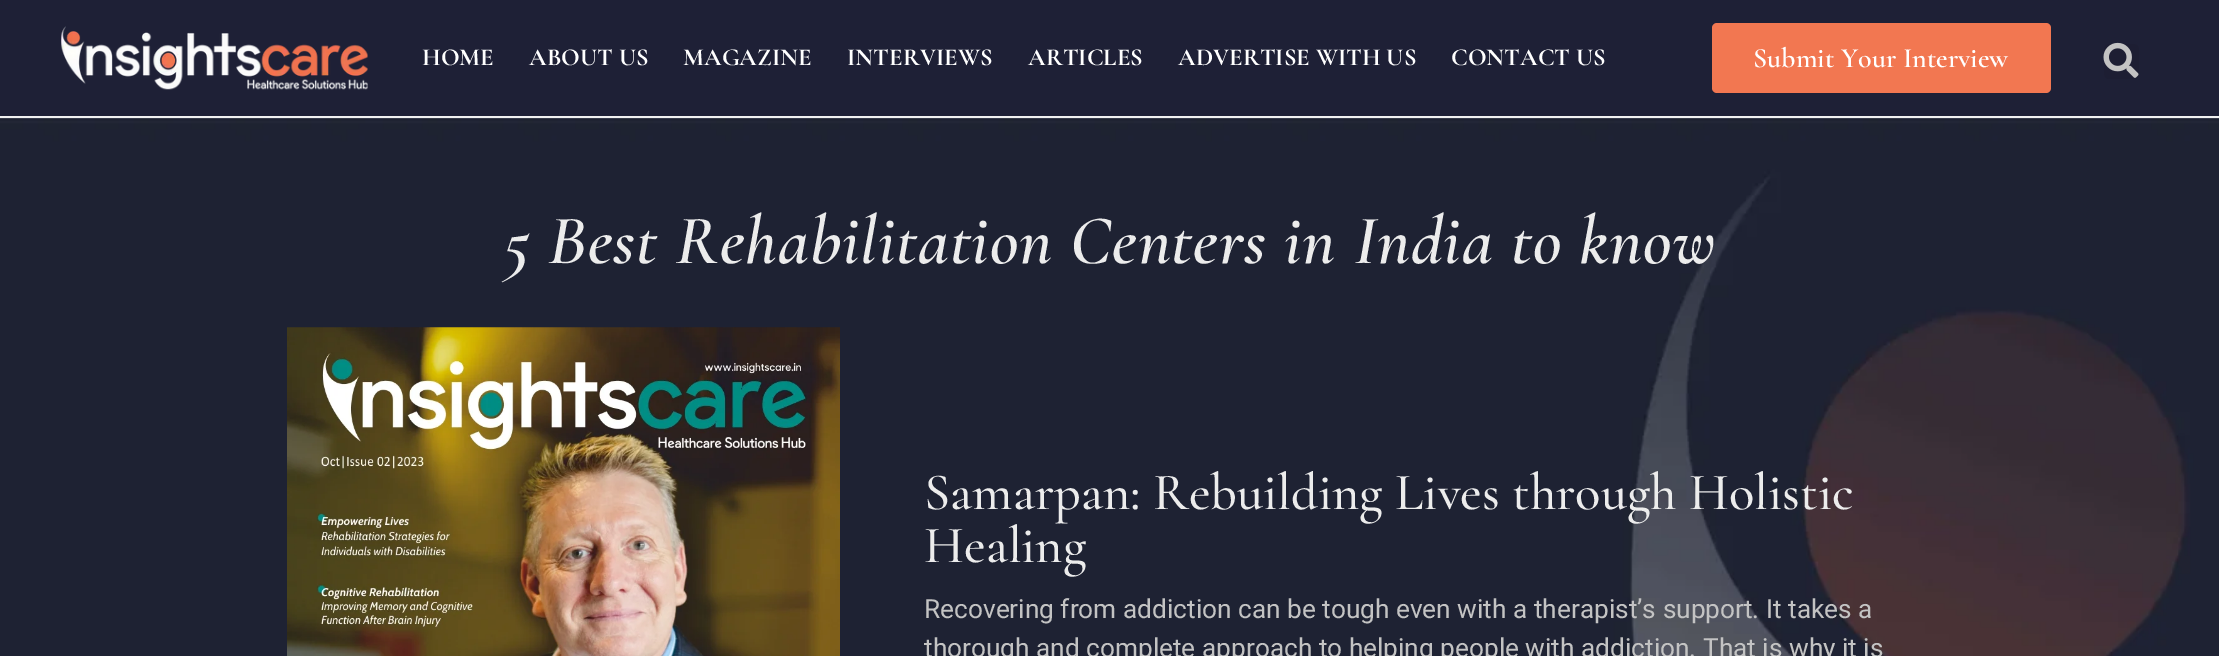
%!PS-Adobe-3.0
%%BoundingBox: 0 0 2219 656
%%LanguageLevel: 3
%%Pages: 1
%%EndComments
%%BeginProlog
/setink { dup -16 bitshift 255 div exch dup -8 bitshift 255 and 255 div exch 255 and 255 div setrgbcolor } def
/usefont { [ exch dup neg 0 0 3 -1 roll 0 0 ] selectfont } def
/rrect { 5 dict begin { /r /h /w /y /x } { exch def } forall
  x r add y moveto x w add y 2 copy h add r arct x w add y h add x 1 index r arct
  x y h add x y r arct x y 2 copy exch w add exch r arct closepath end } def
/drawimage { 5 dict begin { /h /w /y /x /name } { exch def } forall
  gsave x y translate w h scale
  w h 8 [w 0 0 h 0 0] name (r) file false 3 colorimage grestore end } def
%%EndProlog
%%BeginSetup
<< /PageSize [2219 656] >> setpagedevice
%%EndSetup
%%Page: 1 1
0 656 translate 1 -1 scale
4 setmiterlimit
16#FFFFFF setink
0 0 2219 656 rectfill
16#F1F1F1 setink
0 116 2219 2 rectfill
16#1E2036 setink
0 0 2219 116 rectfill
(img1.raw) 61 26 307 64 drawimage
/CormorantGaramond-Bold 24.5 usefont
16#FFFFFF setink
[
    [(HOME) 422 65]
    [(ABOUT US) 529 65]
    [(MAGAZINE) 683 65]
    [(INTERVIEWS) 847 65]
    [(ARTICLES) 1028 65]
    [(ADVERTISE WITH US) 1178 65]
    [(CONTACT US) 1451 65]
] { aload pop moveto show } forall
16#F27751 setink
1712 23 339 70 5 rrect fill
/CormorantGaramond-SemiBold 28 usefont
16#FFFFFF setink
1753 67 moveto (Submit Your Interview) show
16#1D1E33 setink
2104 44 35 35 5 rrect fill
(img2.raw) 2103 42 36 36 drawimage
(img3.raw) 0 118 2219 538 drawimage
/CormorantGaramond-SemiBoldItalic 70 usefont
16#ECECEC setink
504 263 moveto 0.9 0 (5 Best Rehabilitation Centers in India to know) ashow
(img4.raw) 287 327 553 329 drawimage
/CormorantGaramond-Medium 52.5 usefont
924 509 moveto (Samarpan: Rebuilding Lives through Holistic) show
924 562 moveto (Healing) show
/Roboto-Regular 26.25 usefont
16#C3C3C3 setink
924 618 moveto (Recovering from addiction can be tough even with a therapist’s support. It takes a) show
924 657 moveto (thorough and complete approach to helping people with addiction. That is why it is) show
showpage
%%EOF
